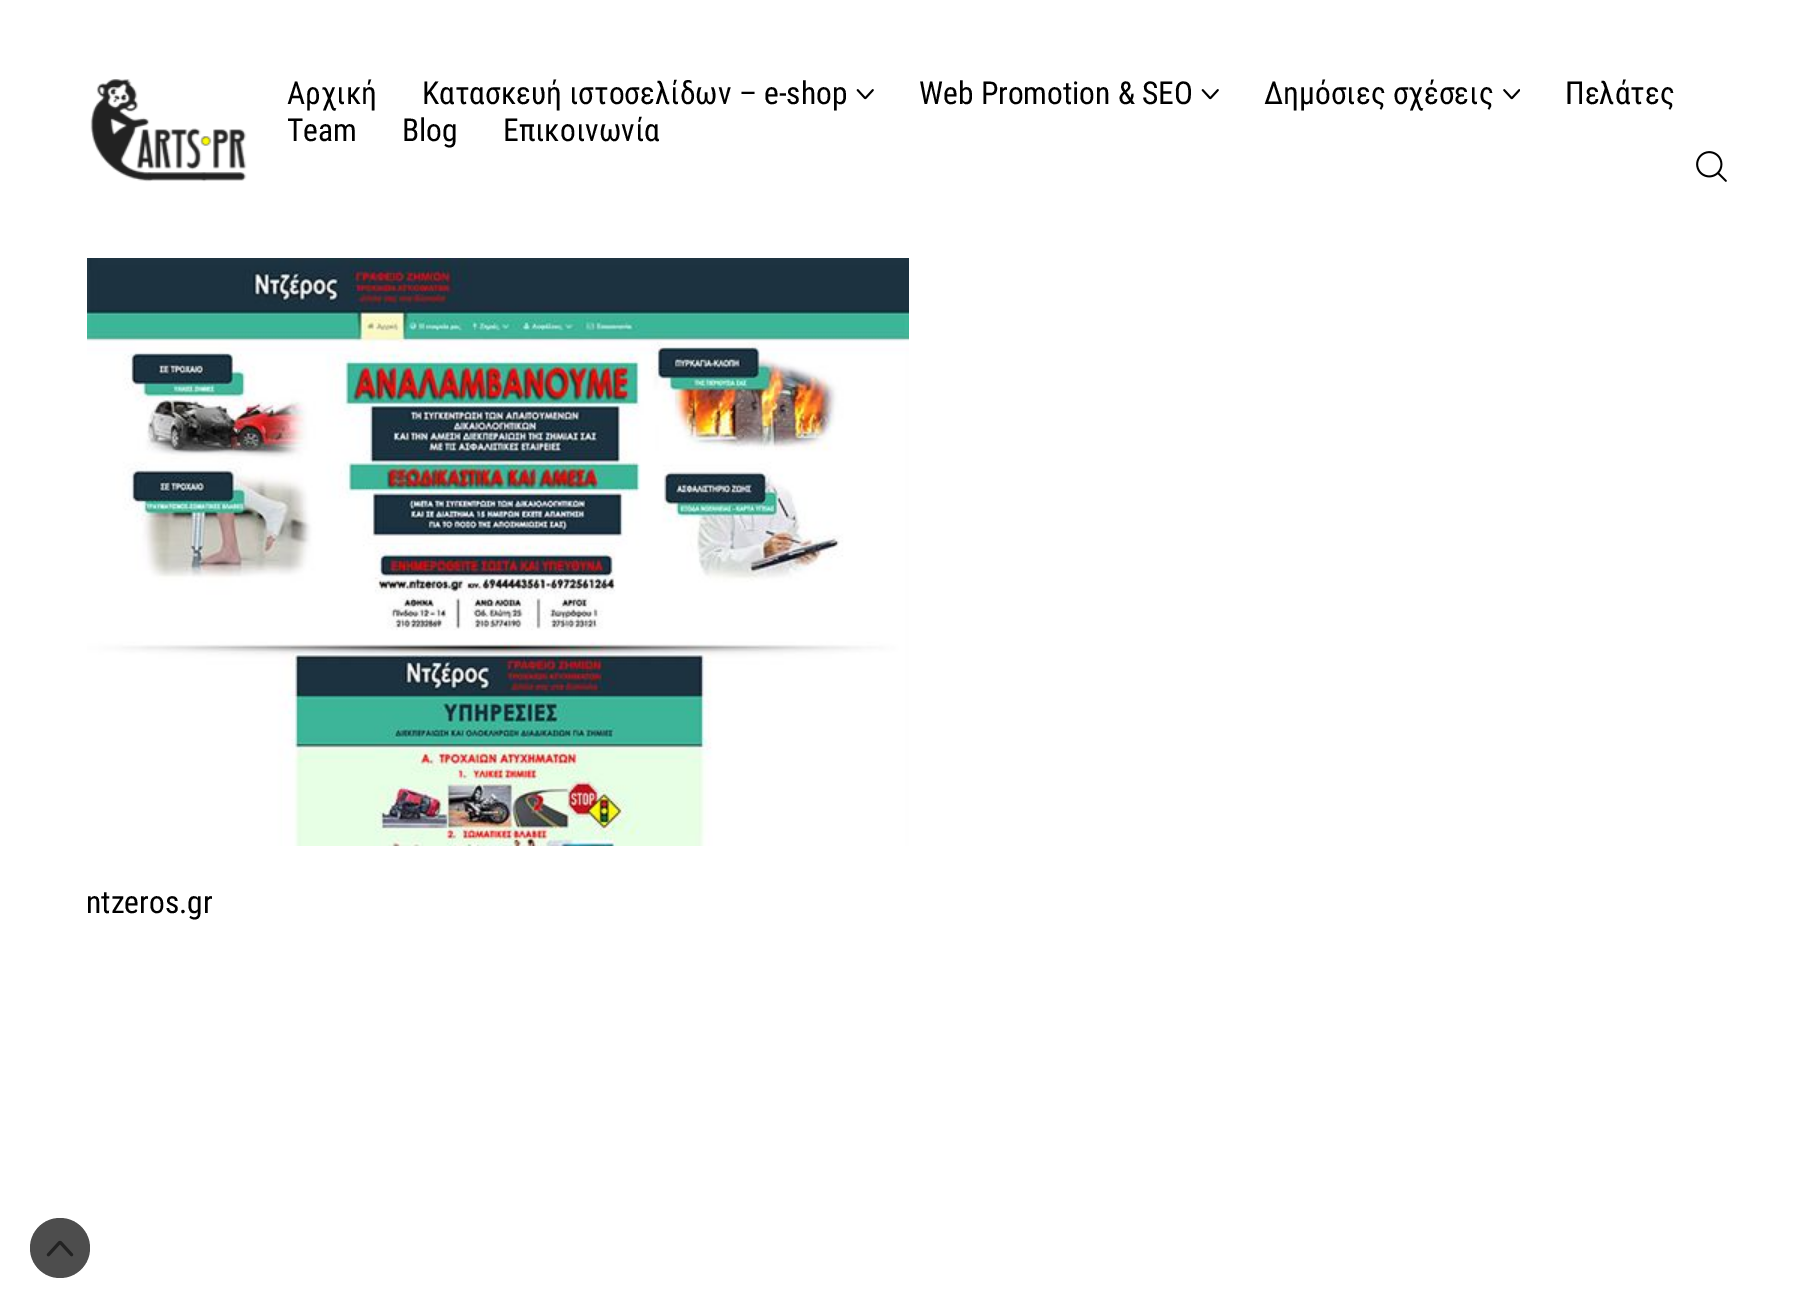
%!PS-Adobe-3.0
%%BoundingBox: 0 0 1813 1308
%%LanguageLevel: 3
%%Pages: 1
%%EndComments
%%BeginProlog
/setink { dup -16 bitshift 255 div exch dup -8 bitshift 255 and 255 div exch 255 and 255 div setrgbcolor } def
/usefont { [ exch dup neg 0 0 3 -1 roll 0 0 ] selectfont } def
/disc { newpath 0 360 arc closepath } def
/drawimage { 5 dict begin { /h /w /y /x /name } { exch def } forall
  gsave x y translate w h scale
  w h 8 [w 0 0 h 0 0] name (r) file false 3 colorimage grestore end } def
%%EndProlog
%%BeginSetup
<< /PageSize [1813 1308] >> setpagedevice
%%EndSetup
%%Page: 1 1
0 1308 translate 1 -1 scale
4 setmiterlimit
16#FFFFFF setink
0 0 1813 1308 rectfill
(img1.raw) 90 79 157 103 drawimage
/RobotoCondensed-Regular 31.5 usefont
16#000000 setink
287 104 moveto (Αρχική) show
422 104 moveto (Κατασκευή ιστοσελίδων – e-shop) show
(img2.raw) 856 89 18 11 drawimage
919 104 moveto (Web Promotion & SEO) show
(img2.raw) 1201 89 18 11 drawimage
1264 104 moveto (Δημόσιες σχέσεις) show
(img3.raw) 1503 89 17 11 drawimage
[
    [(Πελάτες) 1565 104]
    [(Team) 287 141]
    [(Blog) 402 141]
    [(Επικοινωνία) 503 141]
] { aload pop moveto show } forall
(img4.raw) 1696 151 31 31 drawimage
(img5.raw) 87 258 822 588 drawimage
86 913 moveto (ntzeros.gr) show
16#4D4D4D setink
60 1248 30 disc fill
(img6.raw) 46 1240 28 17 drawimage
showpage
%%EOF
